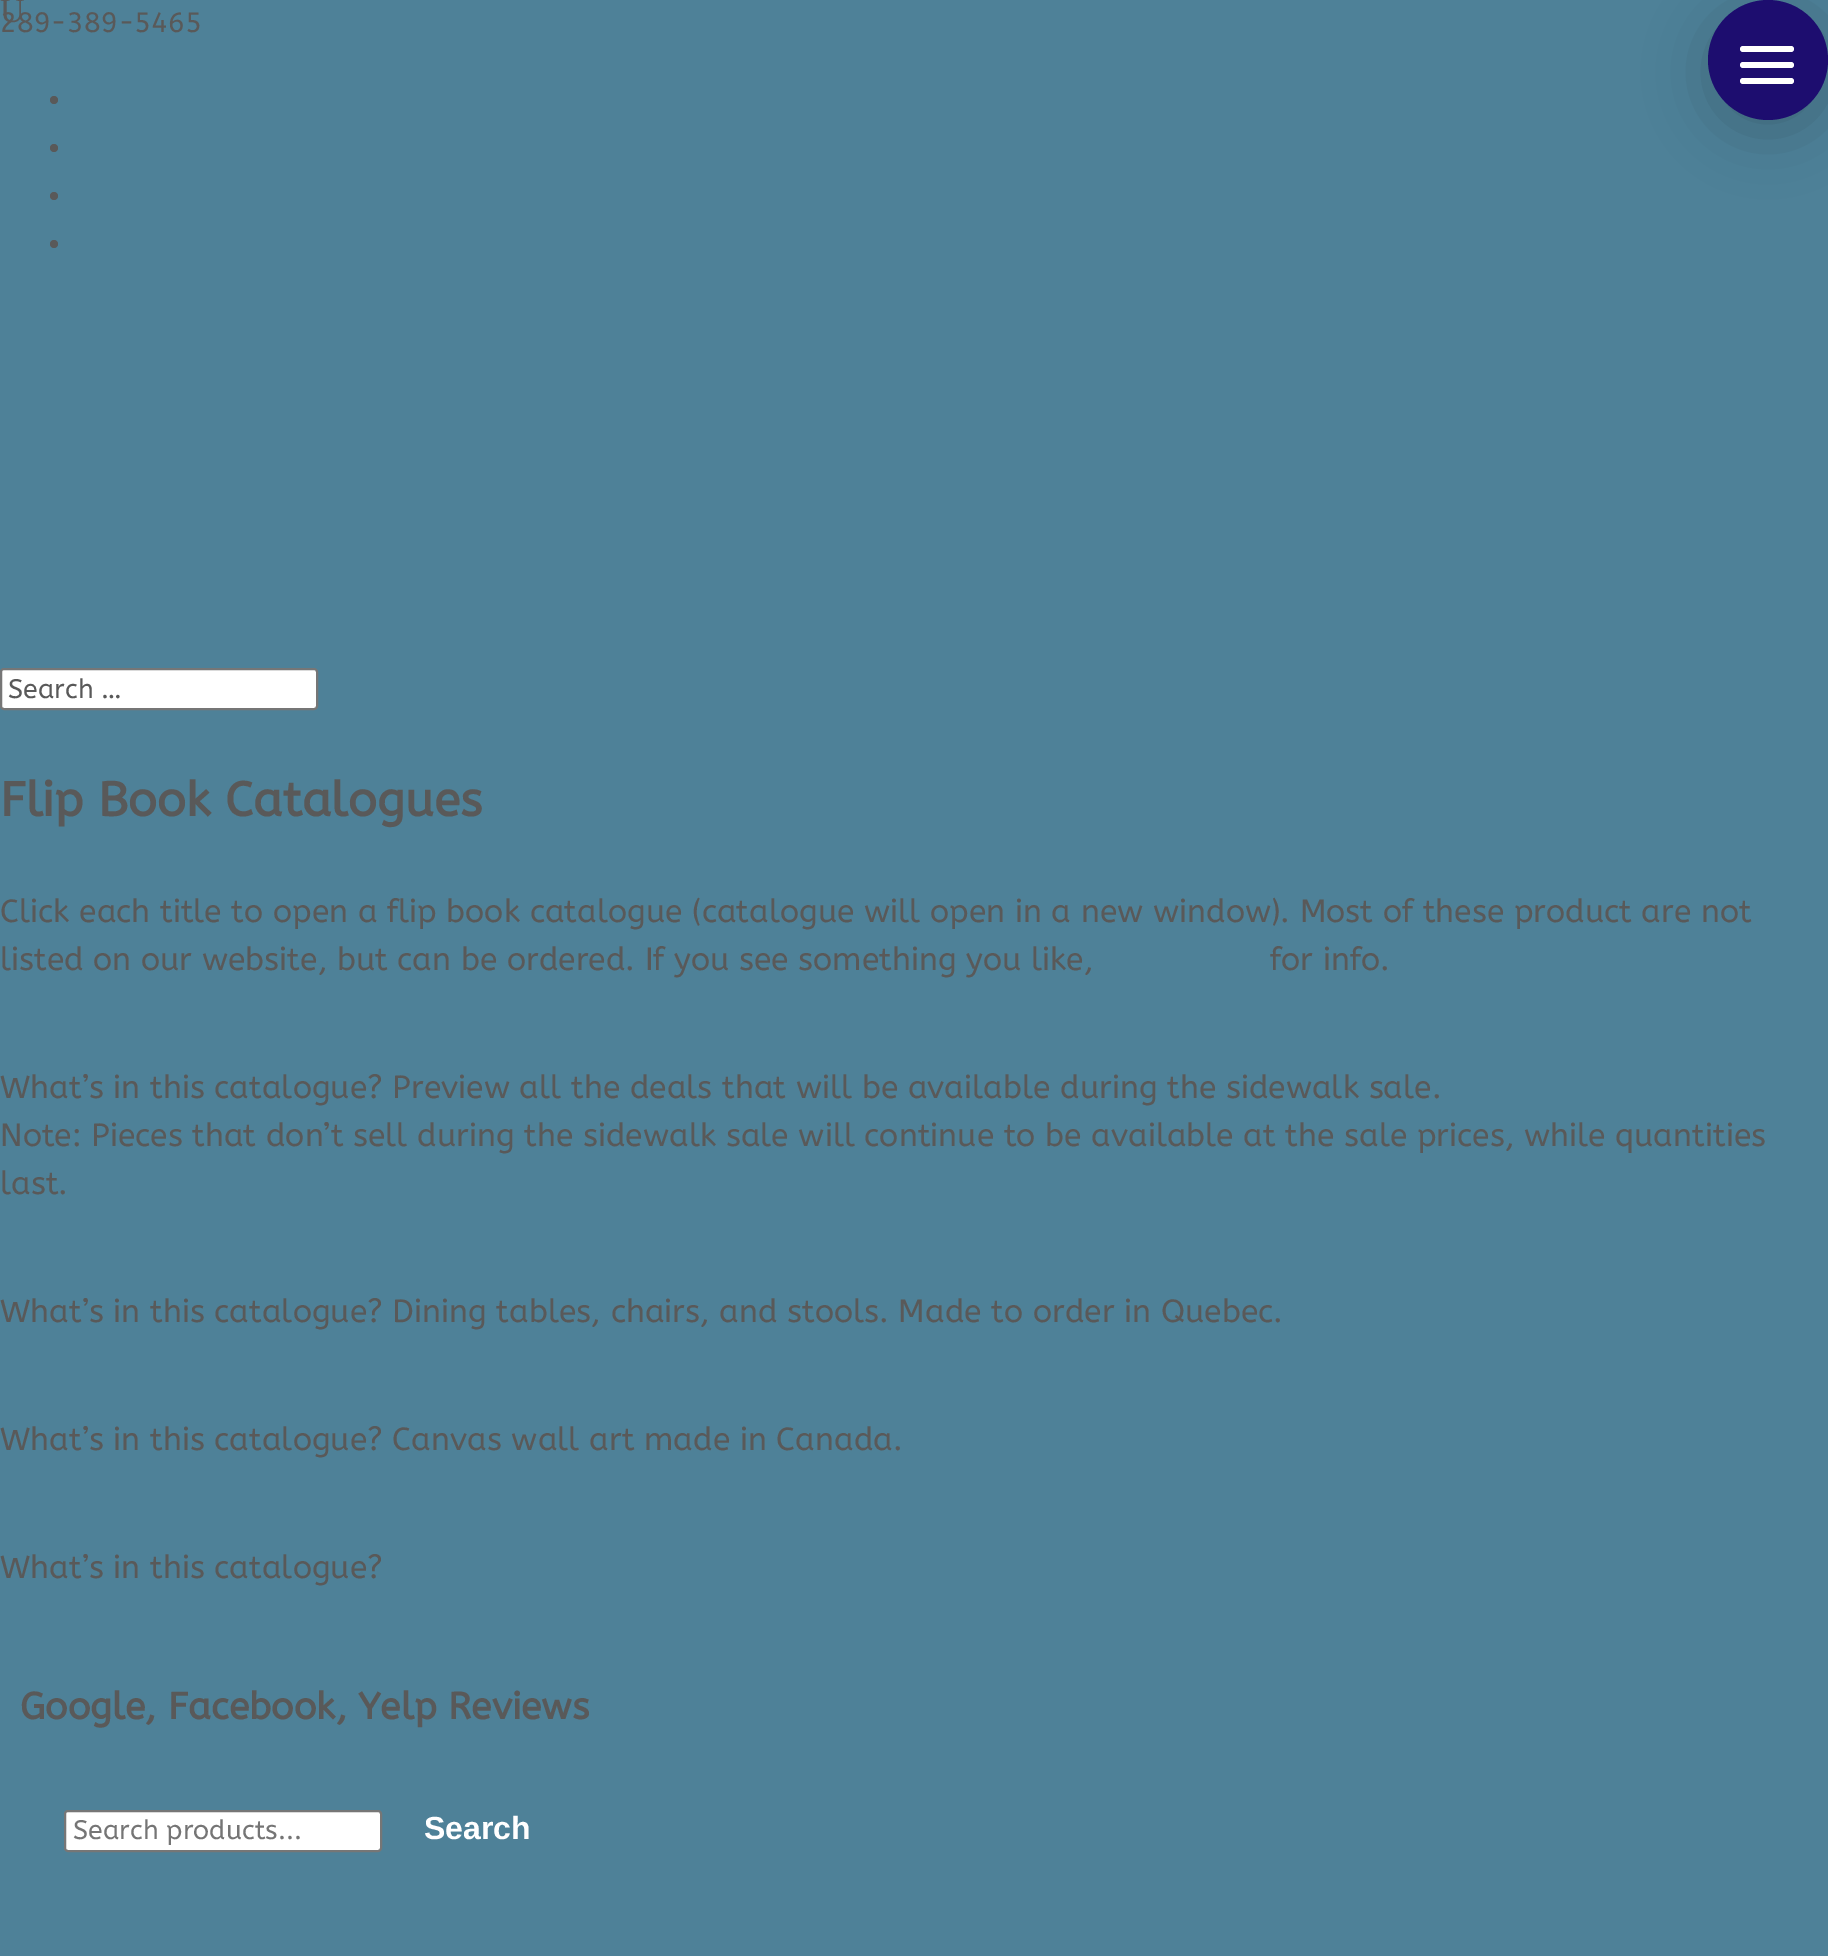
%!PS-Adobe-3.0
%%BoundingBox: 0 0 1828 1956
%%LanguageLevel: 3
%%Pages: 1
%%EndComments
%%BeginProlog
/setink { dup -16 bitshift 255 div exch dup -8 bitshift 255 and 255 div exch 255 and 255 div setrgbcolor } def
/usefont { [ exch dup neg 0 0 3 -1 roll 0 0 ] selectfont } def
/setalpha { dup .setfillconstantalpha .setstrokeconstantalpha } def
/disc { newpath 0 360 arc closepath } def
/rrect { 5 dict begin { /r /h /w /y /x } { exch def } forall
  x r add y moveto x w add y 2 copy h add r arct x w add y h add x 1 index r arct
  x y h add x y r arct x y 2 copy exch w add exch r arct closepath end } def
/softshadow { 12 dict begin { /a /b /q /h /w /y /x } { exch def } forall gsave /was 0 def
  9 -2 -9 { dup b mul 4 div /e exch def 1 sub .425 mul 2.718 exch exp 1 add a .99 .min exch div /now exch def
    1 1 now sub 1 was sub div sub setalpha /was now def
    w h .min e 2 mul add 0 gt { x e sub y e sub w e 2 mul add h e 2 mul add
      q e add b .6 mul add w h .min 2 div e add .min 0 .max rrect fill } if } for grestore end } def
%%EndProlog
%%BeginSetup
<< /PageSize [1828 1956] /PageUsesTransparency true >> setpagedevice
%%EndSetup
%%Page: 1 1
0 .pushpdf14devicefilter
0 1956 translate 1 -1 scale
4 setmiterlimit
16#4E8198 setink
0 0 1828 1956 rectfill
/ABeeZee-Regular 28 usefont
16#595959 setink
0 32 moveto (289-389-5465) show
/LiberationSerif-Regular 34 usefont
0 22 moveto (U) show
16#FFFFFF setink
1 669 316 40 3 rrect gsave fill grestore
16#767676 setink
2 setlinewidth
stroke
/ABeeZee-Regular 26.75 usefont
16#595959 setink
8 698 moveto (Search …) show
54 100 4 disc fill
54 148 4 disc fill
54 196 4 disc fill
54 244 4 disc fill
/ABeeZee-Bold 48 usefont
0 816 moveto (Flip Book Catalogues) show
/ABeeZee-Regular 32 usefont
[
    [(Click each title to open a flip book catalogue \(catalogue will open in a new window\). Most of these product are not) 0 922]
    [(listed on our website, but can be ordered. If you see something you like,) 0 970]
    [(for info.) 1270 970]
    [(What’s in this catalogue? Preview all the deals that will be available during the sidewalk sale.) 0 1098]
    [(Note: Pieces that don’t sell during the sidewalk sale will continue to be available at the sale prices, while quantities) 0 1146]
    [(last.) 0 1194]
    [(What’s in this catalogue? Dining tables, chairs, and stools. Made to order in Quebec.) 0 1322]
    [(What’s in this catalogue? Canvas wall art made in Canada.) 0 1450]
    [(What’s in this catalogue?) 0 1578]
] { aload pop moveto show } forall
/ABeeZee-Bold 37.5 usefont
20 1719 moveto (Google, Facebook, Yelp Reviews) show
16#FFFFFF setink
65 1811 316 40 3 rrect gsave fill grestore
16#767676 setink
stroke
/ABeeZee-Regular 26.75 usefont
16#757575 setink
73 1839 moveto (Search products...) show
/LiberationSans-Bold 32 usefont
16#FFFFFF setink
424 1839 moveto (Search) show
16#000000 setink
1708 12 120 120 60 30 0.2 softshadow
16#1D0D6F setink
1768 60 60 disc fill
16#FFFFFF setink
1740 62 54 6 3 rrect fill
1740 46 54 6 3 rrect fill
1740 78 54 6 3 rrect fill
.poppdf14devicefilter showpage
%%EOF
